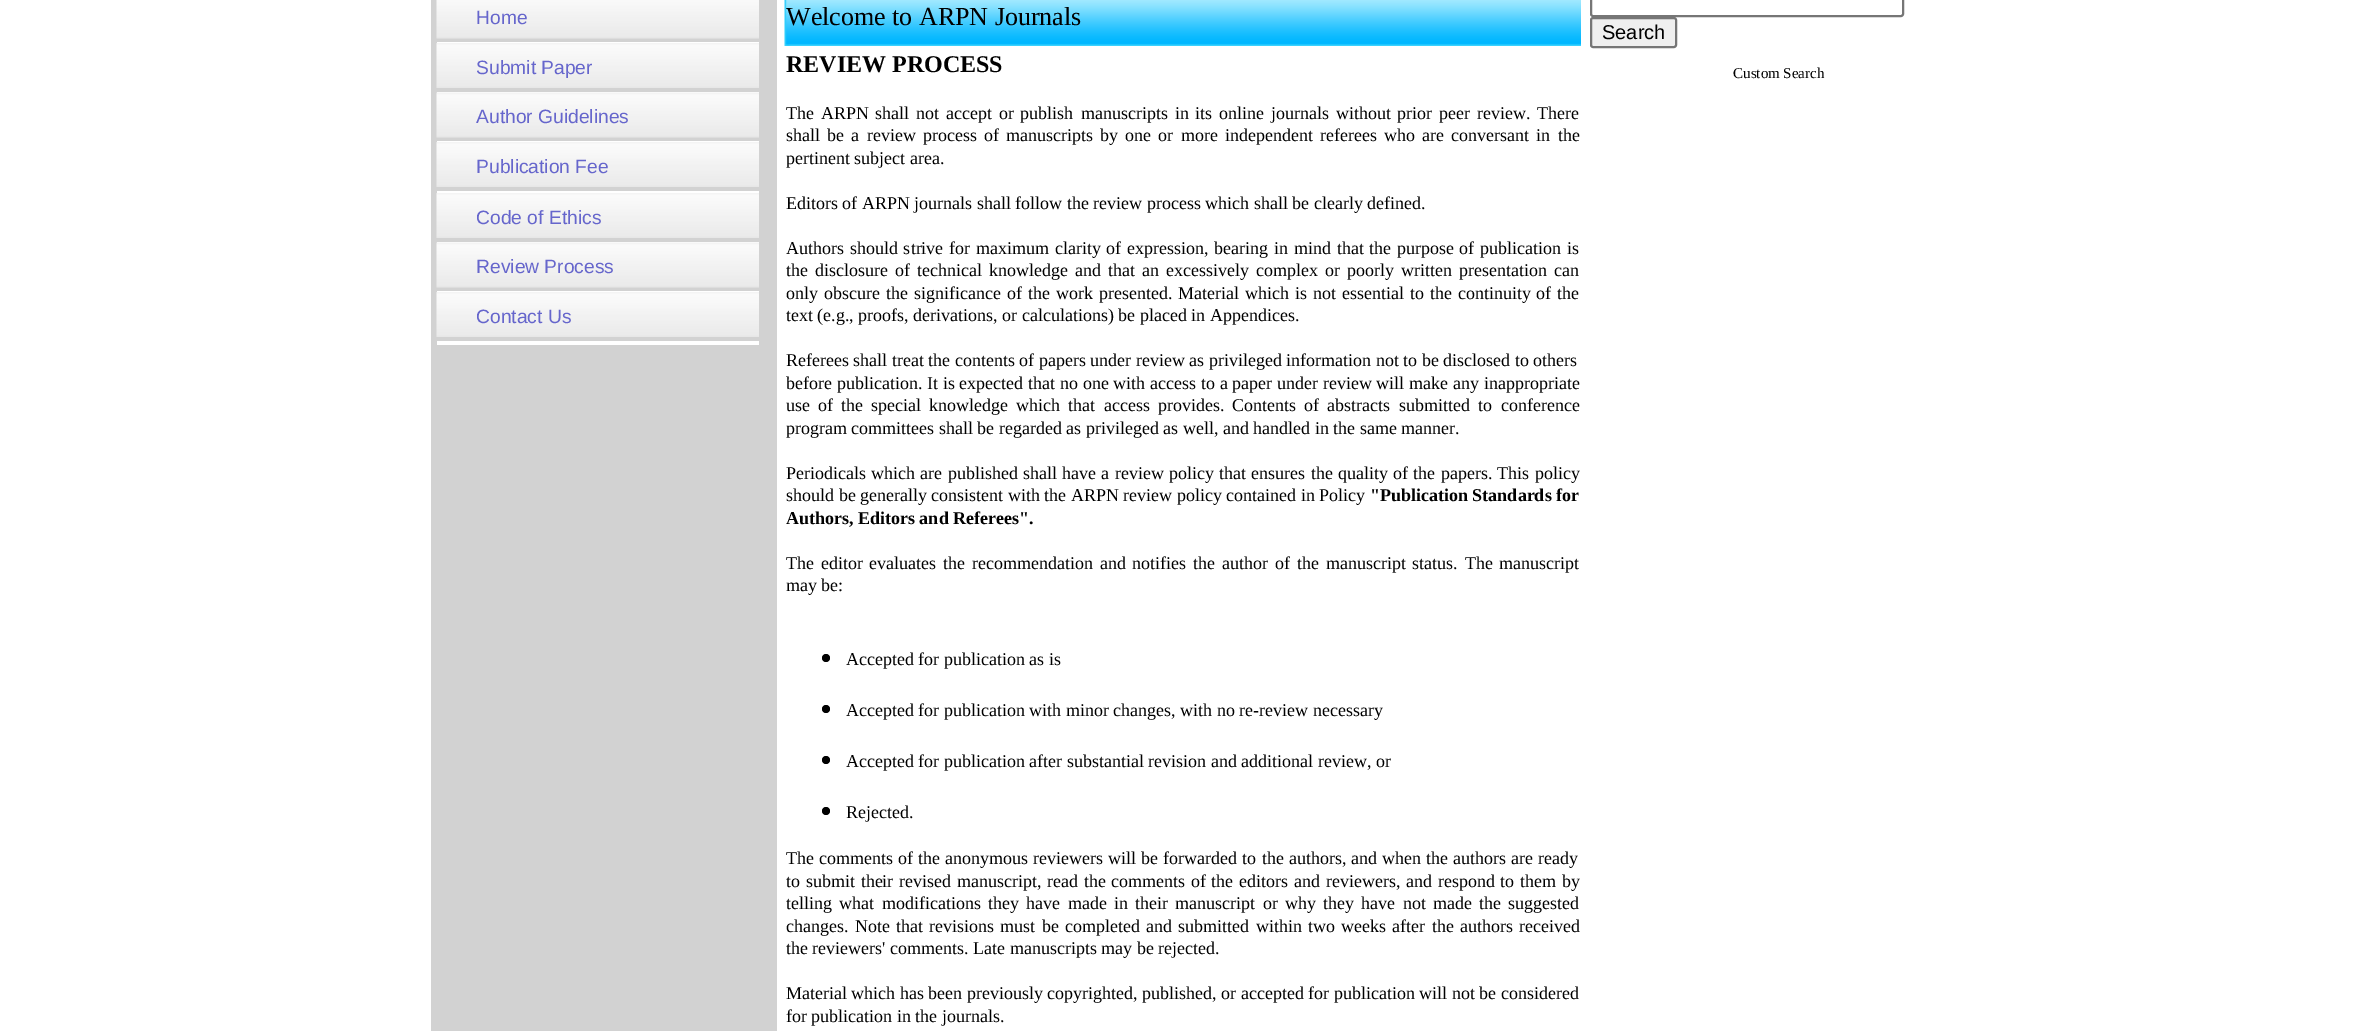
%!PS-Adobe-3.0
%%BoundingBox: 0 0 2355 1031
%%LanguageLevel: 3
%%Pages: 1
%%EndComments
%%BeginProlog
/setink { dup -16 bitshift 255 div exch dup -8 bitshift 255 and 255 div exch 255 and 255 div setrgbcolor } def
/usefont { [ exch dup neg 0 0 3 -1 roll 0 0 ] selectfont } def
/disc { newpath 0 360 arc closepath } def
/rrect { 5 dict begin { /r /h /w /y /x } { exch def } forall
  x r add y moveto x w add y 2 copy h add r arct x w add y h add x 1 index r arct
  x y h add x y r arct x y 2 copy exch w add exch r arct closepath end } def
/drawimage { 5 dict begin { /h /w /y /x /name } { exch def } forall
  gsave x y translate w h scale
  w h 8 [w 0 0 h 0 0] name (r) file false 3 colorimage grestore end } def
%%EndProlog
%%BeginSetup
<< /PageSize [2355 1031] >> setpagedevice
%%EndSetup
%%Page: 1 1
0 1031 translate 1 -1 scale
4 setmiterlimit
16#FFFFFF setink
0 0 2355 1031 rectfill
[
    [431 0 346 1031 16#D2D2D2]
    [437 341 322 4 16#FFFFFF]
    [437 42 322 1 16#FFFFFF]
] { aload pop setink rectfill } forall
(img1.raw) 436 0 323 39 drawimage
/LiberationSans-Regular 19.25 usefont
16#6666CC setink
476 24 moveto (Home) show
16#FFFFFF setink
437 92 322 1 rectfill
(img2.raw) 436 43 323 45 drawimage
16#6666CC setink
476 74 moveto (Submit Paper) show
16#FFFFFF setink
437 141 322 1 rectfill
(img3.raw) 436 92 323 46 drawimage
16#6666CC setink
476 123 moveto (Author Guidelines) show
16#FFFFFF setink
437 191 322 2 rectfill
(img2.raw) 436 142 323 45 drawimage
16#6666CC setink
476 173 moveto (Publication Fee) show
16#FFFFFF setink
437 242 322 1 rectfill
(img2.raw) 436 193 323 45 drawimage
16#6666CC setink
476 224 moveto (Code of Ethics) show
16#FFFFFF setink
437 291 322 1 rectfill
(img3.raw) 436 242 323 46 drawimage
16#6666CC setink
476 273 moveto (Review Process) show
(img2.raw) 436 292 323 45 drawimage
476 323 moveto (Contact Us) show
(img4.raw) 784 0 797 46 drawimage
/LiberationSerif-Regular 26 usefont
16#000000 setink
786 25 moveto (Welcome to ARPN Journals) show
/LiberationSerif-Bold 24 usefont
786 72 moveto (REVIEW PROCESS) show
/LiberationSerif-Regular 18 usefont
786 119 moveto 2.25 0 32 (The ARPN shall not accept or publish) widthshow
1081 119 moveto 2.25 0 32 (manuscripts in its online journals without prior peer review. There) widthshow
786 141 moveto 2.6 0 32 (shall be a) widthshow
867 141 moveto 2.6 0 32 (review process of manuscripts by one or more independent referees who are) widthshow
1451 141 moveto 3 0 32 (conversant in the) widthshow
786 164 moveto (pertinent subject area.) show
786 209 moveto (Editors of ARPN journals shall follow the review process which shall be clearly defined.) show
786 254 moveto 1.25 0 32 (Authors should strive for maximum clarity of expression, bearing in mind that) widthshow
1369 254 moveto 1.25 0 32 (the purpose of publication is) widthshow
786 276 moveto 2.5 0 32 (the disclosure of technical knowledge and that) widthshow
1142 276 moveto 2.5 0 32 (an excessively complex or poorly written presentation can) widthshow
786 299 moveto 1.5 0 32 (only obscure the) widthshow
914 299 moveto 1.5 0 32 (significance of the work presented. Material which is not essential to the) widthshow
1458 299 moveto 1 0 32 (continuity of the) widthshow
786 321 moveto (text \(e.g., proofs, derivations, or calculations\) be placed in Appendices.) show
786 366 moveto (Referees shall treat the contents of papers under review as privileged information not to be disclosed to others) show
786 389 moveto 0.25 0 32 (before publication. It is expected that no one with access to a paper under review will make any inappropriate) widthshow
786 411 moveto 3.6 0 32 (use of the special knowledge which that access provides. Contents of abstracts) widthshow
1399 411 moveto 4 0 32 (submitted to conference) widthshow
786 434 moveto (program committees shall be regarded as privileged as well, and handled in the same manner.) show
786 479 moveto 0.75 0 32 (Periodicals which are published shall have a review policy that ensures the) widthshow
1338 479 moveto 0.75 0 32 (quality of the papers. This policy) widthshow
786 501 moveto (should be generally consistent with the ARPN review policy contained in Policy) show
/LiberationSerif-Bold 18 usefont
1370 501 moveto ("Publication Standards for) show
786 524 moveto (Authors, Editors and Referees".) show
/LiberationSerif-Regular 18 usefont
786 569 moveto 2.25 0 32 (The editor evaluates the recommendation and notifies the author of) widthshow
1297 569 moveto 2.25 0 32 (the manuscript status. The manuscript) widthshow
786 591 moveto (may be:) show
826 658 4 disc fill
846 665 moveto (Accepted for publication as is) show
826 709 4 disc fill
846 716 moveto (Accepted for publication with minor changes, with no re-review necessary) show
826 760 4 disc fill
846 767 moveto (Accepted for publication after substantial revision and additional review, or) show
826 811 4 disc fill
846 818 moveto (Rejected.) show
786 864 moveto 0.5 0 32 (The comments of the anonymous reviewers will be forwarded to) widthshow
1262 864 moveto 0.5 0 32 (the authors, and when the authors are ready) widthshow
786 887 moveto 1.25 0 32 (to submit their revised manuscript, read the) widthshow
1111 887 moveto 1.25 0 32 (comments of the editors and reviewers, and respond to them by) widthshow
786 909 moveto 2.75 0 32 (telling what) widthshow
882 909 moveto 2.75 0 32 (modifications they have made in their manuscript or why they have not made the) widthshow
1508 909 moveto (suggested) show
786 932 moveto 1.75 0 32 (changes. Note that revisions must be completed and submitted within) widthshow
1308 932 moveto 1.75 0 32 (two weeks after the authors received) widthshow
[
    [(the reviewers' comments. Late manuscripts may be rejected.) 786 954]
    [(Material which has been previously copyrighted, published, or accepted for publication will not be considered) 786 999]
    [(for publication in the journals.) 786 1022]
] { aload pop moveto show } forall
16#767676 setink
2 setlinewidth
1591 -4 312 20 2 rrect stroke
16#EFEFEF setink
1591 18 85 29 2 rrect gsave fill grestore
16#767676 setink
stroke
/LiberationSans-Regular 20 usefont
16#000000 setink
1602 39 moveto (Search) show
/LiberationSerif-Regular 15 usefont
1733 78 moveto (Custom Search) show
showpage
%%EOF
